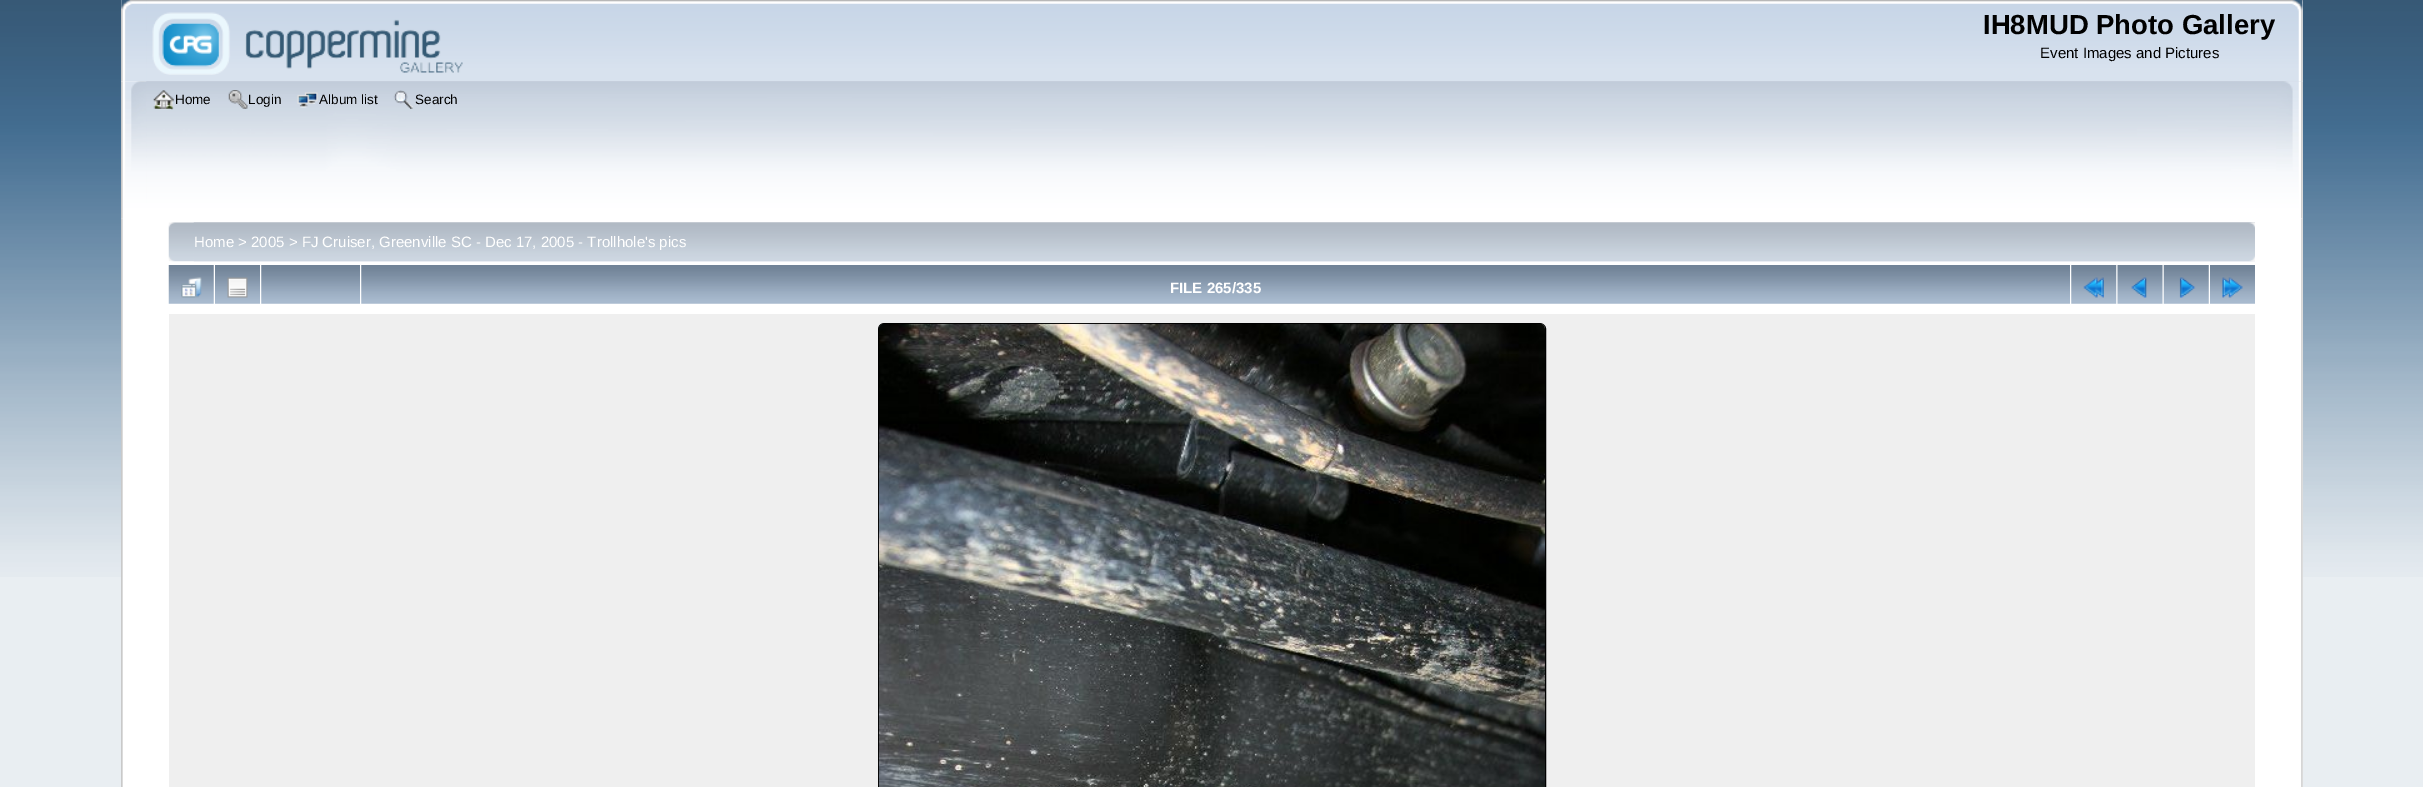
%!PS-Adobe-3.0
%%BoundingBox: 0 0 2423 787
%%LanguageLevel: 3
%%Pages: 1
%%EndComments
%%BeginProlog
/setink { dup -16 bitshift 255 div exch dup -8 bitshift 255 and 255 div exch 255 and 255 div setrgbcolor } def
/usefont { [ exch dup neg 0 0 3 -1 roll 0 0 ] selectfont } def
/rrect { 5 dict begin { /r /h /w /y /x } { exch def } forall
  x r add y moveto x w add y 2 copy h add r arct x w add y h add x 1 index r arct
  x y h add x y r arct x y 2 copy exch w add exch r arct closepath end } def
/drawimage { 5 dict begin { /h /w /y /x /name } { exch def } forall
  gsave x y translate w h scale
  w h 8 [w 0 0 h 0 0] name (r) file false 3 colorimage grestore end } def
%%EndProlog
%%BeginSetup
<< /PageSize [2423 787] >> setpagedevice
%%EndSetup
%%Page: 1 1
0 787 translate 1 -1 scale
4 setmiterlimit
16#E9EEF2 setink
0 0 2423 787 rectfill
(img1.raw) 0 0 2423 577 drawimage
(img2.raw) 121 0 2182 81 drawimage
(img3.raw) 146 0 2157 81 drawimage
(img4.raw) 152 12 311 63 drawimage
/LiberationSans-Bold 27.5 usefont
16#000000 setink
1983 34 moveto (IH8MUD Photo Gallery) show
/LiberationSans-Regular 15 usefont
2040 58 moveto (Event Images and Pictures) show
16#FEFEFE setink
121 81 2182 138 rectfill
(img5.raw) 121 81 2182 138 drawimage
(img6.raw) 146 81 2157 138 drawimage
(img7.raw) 153 90 21 20 drawimage
/LiberationSans-Regular 13.5 usefont
16#000000 setink
175 104 moveto (Home) show
(img8.raw) 228 90 20 19 drawimage
248 104 moveto (Login) show
(img9.raw) 297 92 21 16 drawimage
319 104 moveto (Album list) show
(img10.raw) 393 90 20 19 drawimage
415 104 moveto (Search) show
16#FFFFFF setink
121 219 2182 568 rectfill
(img11.raw) 121 218 2181 569 drawimage
(img12.raw) 2301 218 2 569 drawimage
(img13.raw) 168 222 2087 40 drawimage
(img14.raw) 193 222 2062 40 drawimage
/LiberationSans-Regular 15 usefont
194 247 moveto (Home > 2005 > FJ Cruiser, Greenville SC - Dec 17, 2005 - Trollhole's pics) show
(img15.raw) 168 265 46 39 drawimage
(img16.raw) 181 277 21 21 drawimage
(img17.raw) 215 265 45 39 drawimage
(img18.raw) 227 277 21 21 drawimage
(img19.raw) 261 265 99 39 drawimage
(img20.raw) 361 265 1709 39 drawimage
/LiberationSans-Bold 15 usefont
1170 293 moveto (FILE 265/335) show
(img21.raw) 2071 265 46 39 drawimage
(img22.raw) 2083 277 21 21 drawimage
(img23.raw) 2117 265 46 39 drawimage
(img24.raw) 2131 277 16 21 drawimage
(img15.raw) 2163 265 46 39 drawimage
(img25.raw) 2179 277 17 21 drawimage
(img17.raw) 2210 265 45 39 drawimage
(img26.raw) 2222 277 21 21 drawimage
16#EFEFEF setink
169 314 2086 473 rectfill
16#000000 setink
878.5 323.5 667 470 5.5 rrect stroke
(img27.raw) 878 323 667 464 drawimage
showpage
%%EOF
